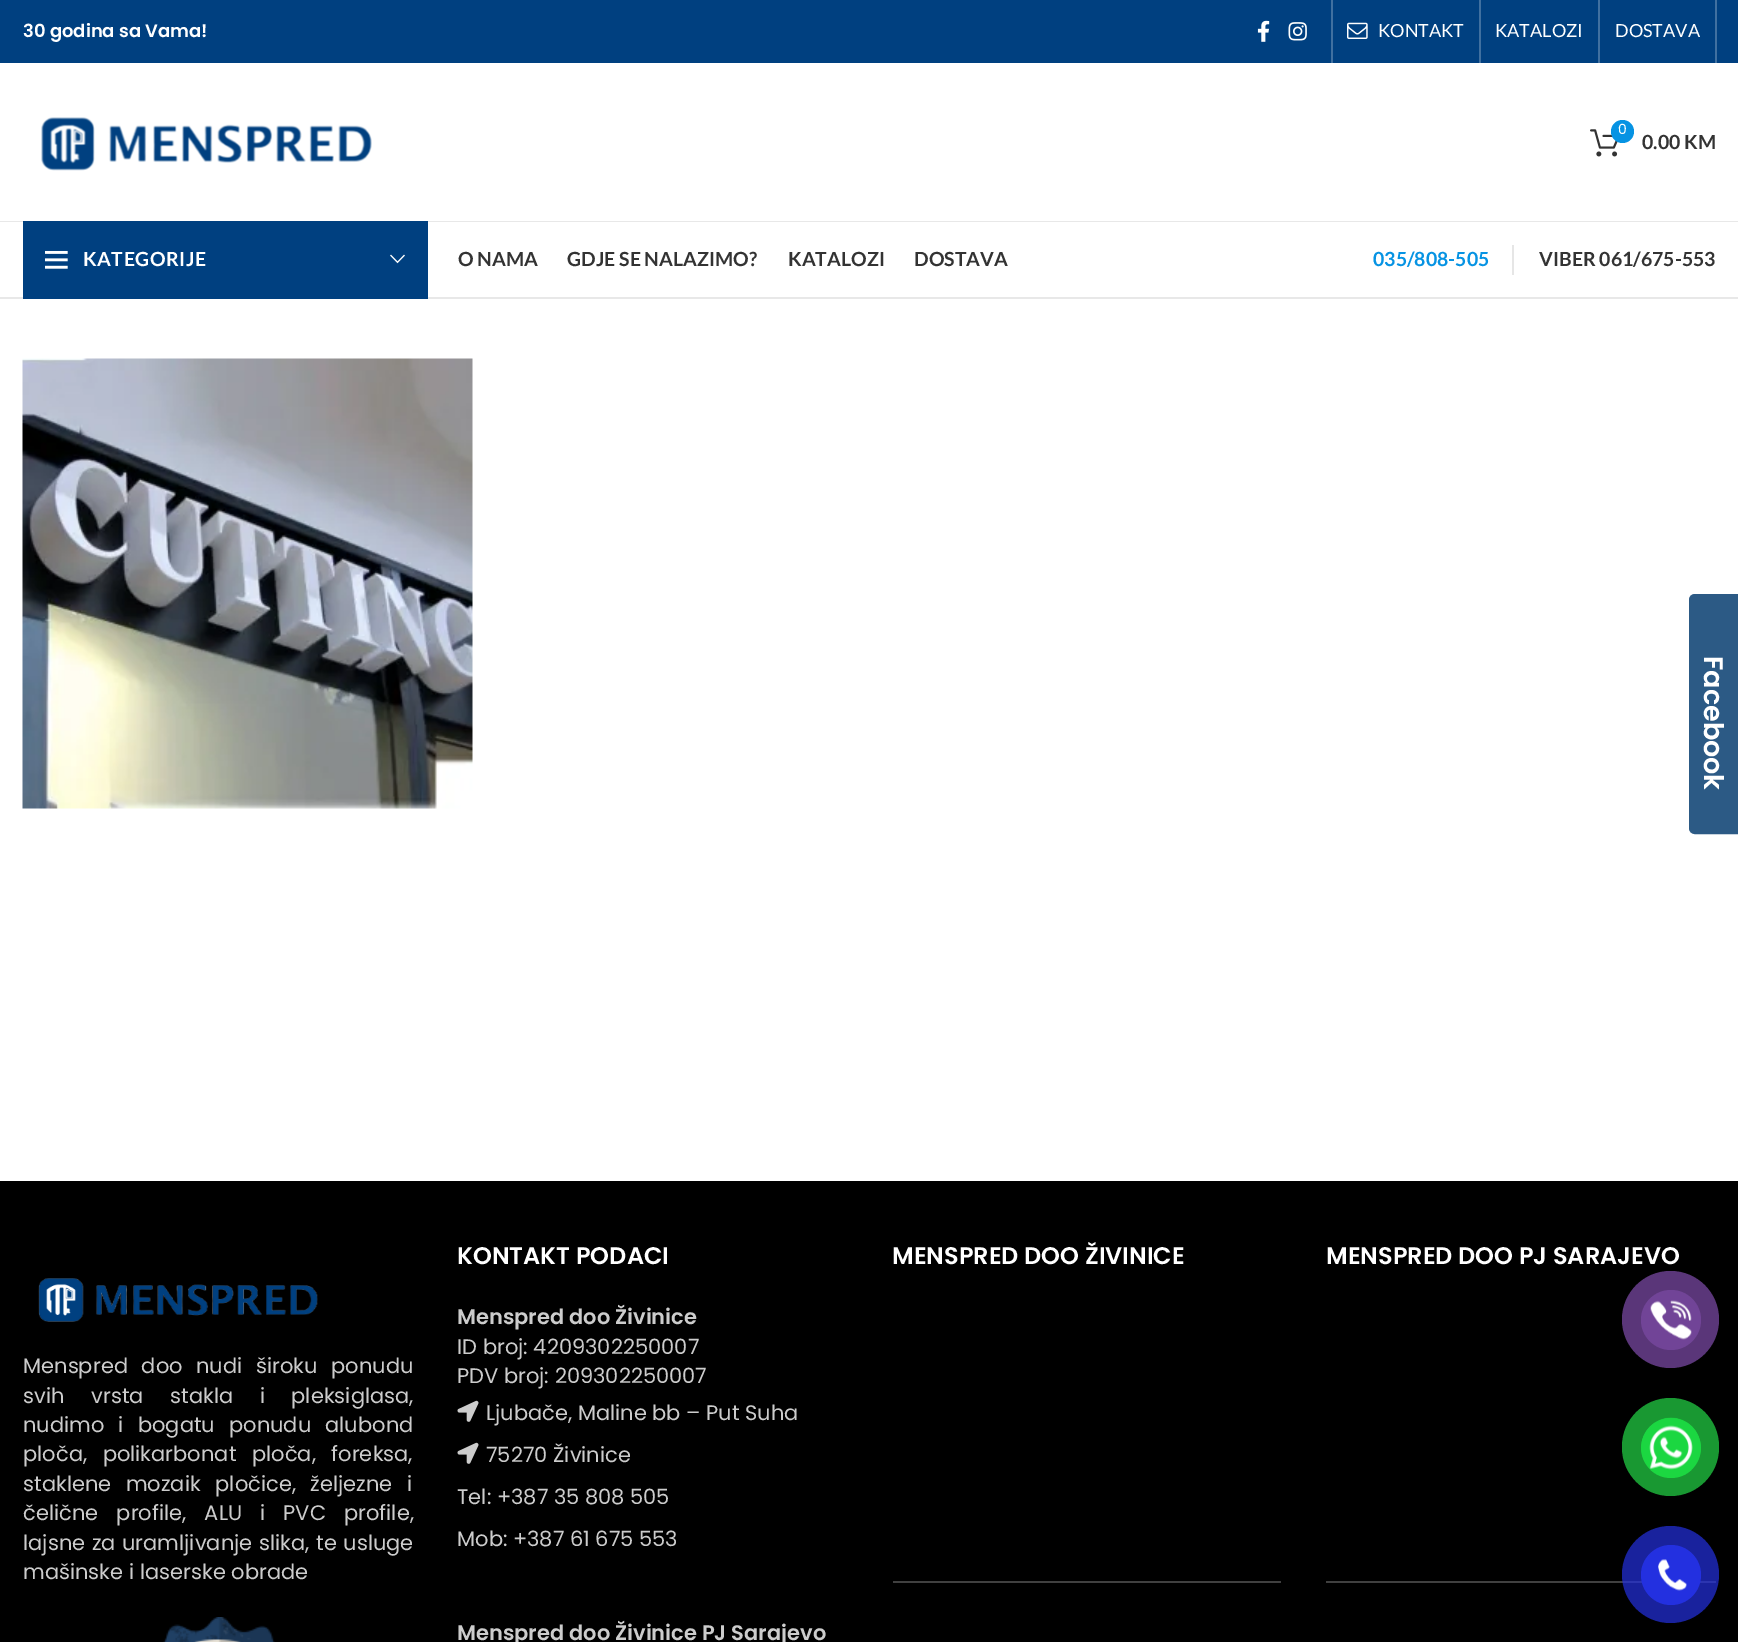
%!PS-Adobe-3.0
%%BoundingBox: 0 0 1738 1642
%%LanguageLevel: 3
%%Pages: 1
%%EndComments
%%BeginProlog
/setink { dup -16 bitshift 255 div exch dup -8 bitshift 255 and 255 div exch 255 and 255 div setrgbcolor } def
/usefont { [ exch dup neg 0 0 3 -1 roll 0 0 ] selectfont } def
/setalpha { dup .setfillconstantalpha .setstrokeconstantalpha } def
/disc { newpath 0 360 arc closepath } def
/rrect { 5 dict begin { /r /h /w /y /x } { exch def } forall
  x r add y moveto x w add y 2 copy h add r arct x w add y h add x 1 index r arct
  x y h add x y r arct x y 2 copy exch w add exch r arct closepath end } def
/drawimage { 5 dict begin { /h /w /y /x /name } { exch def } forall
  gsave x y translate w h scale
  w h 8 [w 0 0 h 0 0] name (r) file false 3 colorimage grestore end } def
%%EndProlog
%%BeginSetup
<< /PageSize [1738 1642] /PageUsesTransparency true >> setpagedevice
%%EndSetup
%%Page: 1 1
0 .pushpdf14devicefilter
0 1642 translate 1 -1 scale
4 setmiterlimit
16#FFFFFF setink
0 0 1738 1642 rectfill
16#004080 setink
0 0 1738 63 rectfill
/Poppins-SemiBold 18 usefont
16#FFFFFF setink
23 37 moveto (30 godina sa Vama!) show
(img1.raw) 1257 20 13 22 drawimage
(img2.raw) 1288 22 19 19 drawimage
16#4070A0 setink
1331 0 2 63 rectfill
(img3.raw) 1347 22 21 17 drawimage
/Lato-Regular 18 usefont
16#FFFFFF setink
1378 37 moveto (KONTAKT) show
16#4070A0 setink
1479 0 2 63 rectfill
16#FFFFFF setink
1495 37 moveto (KATALOZI) show
16#4070A0 setink
1598 0 2 63 rectfill
16#FFFFFF setink
1615 37 moveto (DOSTAVA) show
16#4070A0 setink
1715 0 2 63 rectfill
16#E8E8E8 setink
0 221 1738 1 rectfill
(img4.raw) 41 117 331 54 drawimage
(img5.raw) 1590 129 28 28 drawimage
16#0693E3 setink
1622.5 131.5 11.5 disc fill
/Poppins-Regular 14 usefont
16#FFFFFF setink
1618 134 moveto (0) show
/Lato-Bold 19.5 usefont
16#333333 setink
1642 149 moveto (0.00 KM) show
16#E8E8E8 setink
0 297 1738 2 rectfill
16#004080 setink
23 221 405 78 rectfill
(img6.raw) 45 250 23 19 drawimage
16#FFFFFF setink
83 266 moveto 0.5 0 (KATEGORIJE) ashow
(img7.raw) 390 254 15 10 drawimage
16#333333 setink
[
    [(O NAMA) 458 266]
    [(GDJE SE NALAZIMO?) 567 266]
    [(KATALOZI) 788 266]
    [(DOSTAVA) 914 266]
] { aload pop moveto show } forall
16#E6E6E6 setink
1512 245 2 30 rectfill
16#0693E3 setink
1373 266 moveto (035/808-505) show
16#333333 setink
1539 266 moveto (VIBER 061/675-553) show
(img8.raw) 22 358 451 451 drawimage
16#000000 setink
0 1181 1738 461 rectfill
/Poppins-SemiBold 24 usefont
16#FFFFFF setink
457 1264 moveto (KONTAKT PODACI) show
/Poppins-SemiBold 21 usefont
16#CCCCCC setink
457 1324 moveto (Menspred doo Živinice) show
/Poppins-Regular 21 usefont
457 1354 moveto (ID broj: 4209302250007) show
457 1383 moveto (PDV broj: 209302250007) show
(img9.raw) 457 1400 22 22 drawimage
486 1420 moveto (Ljubače, Maline bb – Put Suha) show
(img9.raw) 457 1442 22 22 drawimage
[
    [(75270 Živinice) 486 1462]
    [(Tel: +387 35 808 505) 457 1504]
    [(Mob: +387 61 675 553) 457 1546]
] { aload pop moveto show } forall
/Poppins-SemiBold 21 usefont
457 1640 moveto (Menspred doo Živinice PJ Sarajevo) show
16#404040 setink
893 1581 388 2 rectfill
/Poppins-SemiBold 24 usefont
16#FFFFFF setink
892 1264 moveto (MENSPRED DOO ŽIVINICE) show
16#404040 setink
1326 1581 390 2 rectfill
16#FFFFFF setink
1326 1264 moveto (MENSPRED DOO PJ SARAJEVO) show
(img10.raw) 38 1278 280 44 drawimage
/Poppins-Regular 21 usefont
16#CCCCCC setink
23 1373 moveto 8 0 32 (Menspred doo nudi široku ponudu) widthshow
23 1403 moveto 21 0 32 (svih vrsta stakla i pleksiglasa,) widthshow
23 1432 moveto 8.5 0 32 (nudimo i bogatu ponudu alubond) widthshow
23 1461 moveto 10 0 32 (ploča, polikarbonat ploča, foreksa,) widthshow
23 1491 moveto 9 0 32 (staklene mozaik pločice, željezne i) widthshow
23 1520 moveto 12.5 0 32 (čelične profile, ALU i PVC profile,) widthshow
23 1550 moveto 1 0 32 (lajsne za uramljivanje slika, te usluge) widthshow
23 1579 moveto (mašinske i laserske obrade) show
(img11.raw) 163 1617 112 25 drawimage
16#2C5A85 setink
1695 595 moveto 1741 595 lineto 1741 833 lineto 1695 833 lineto 1692 833 1690 831 1690 828 curveto 1690 600 lineto 1690 597 1692 595 1695 595 curveto closepath gsave fill grestore
2 setlinewidth
stroke
/Poppins-SemiBold 27 usefont
16#FFFFFF setink
gsave 1704 656 translate 90 rotate 0 0 moveto (Facebook) show grestore
16#5A3679 setink
1670.5 1319.5 48.5 disc fill
16#714497 setink
1671 1320 30 disc fill
(img12.raw) 1650 1300 42 40 drawimage
16#199832 setink
1622 1398 97 98 48.5 rrect fill
16#1CD741 setink
1671 1448 30 disc fill
(img13.raw) 1641 1417 60 53 drawimage
0.7 setalpha
16#2330E0 setink
1670.5 1574.5 48.5 disc fill
1 setalpha
1671 1575 30 disc fill
(img14.raw) 1658 1559 29 32 drawimage
.poppdf14devicefilter showpage
%%EOF
